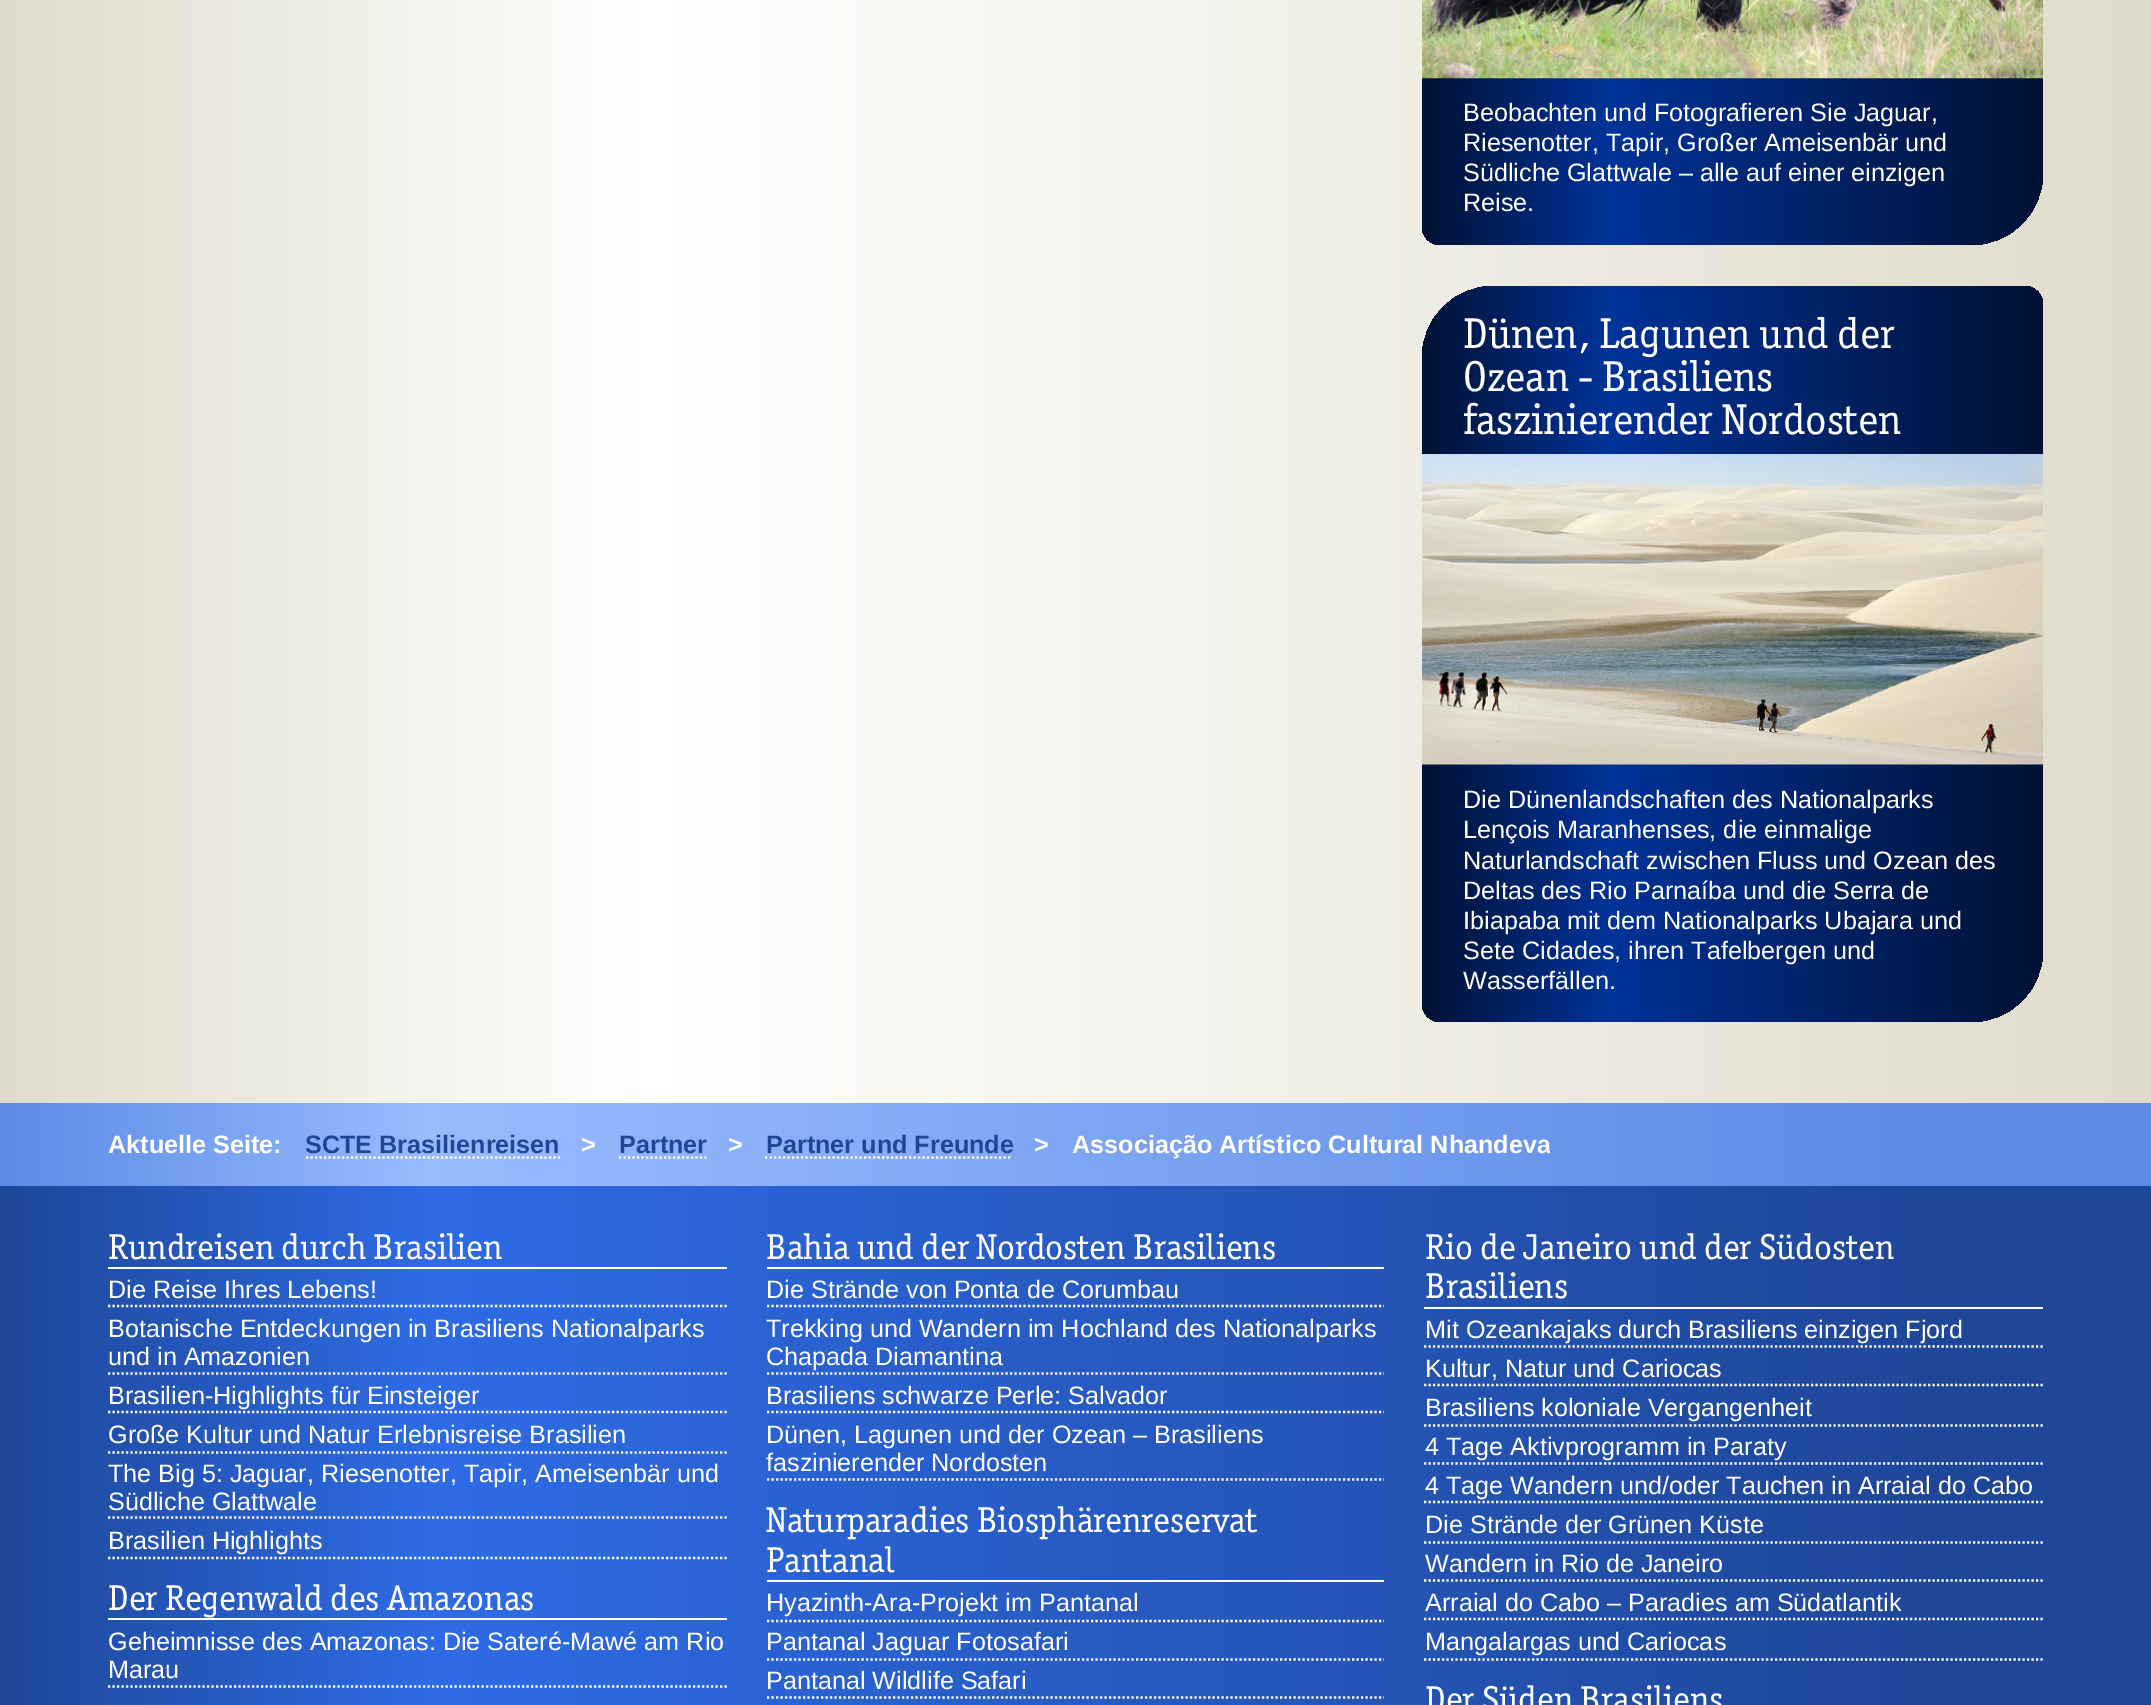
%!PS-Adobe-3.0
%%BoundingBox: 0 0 2151 1705
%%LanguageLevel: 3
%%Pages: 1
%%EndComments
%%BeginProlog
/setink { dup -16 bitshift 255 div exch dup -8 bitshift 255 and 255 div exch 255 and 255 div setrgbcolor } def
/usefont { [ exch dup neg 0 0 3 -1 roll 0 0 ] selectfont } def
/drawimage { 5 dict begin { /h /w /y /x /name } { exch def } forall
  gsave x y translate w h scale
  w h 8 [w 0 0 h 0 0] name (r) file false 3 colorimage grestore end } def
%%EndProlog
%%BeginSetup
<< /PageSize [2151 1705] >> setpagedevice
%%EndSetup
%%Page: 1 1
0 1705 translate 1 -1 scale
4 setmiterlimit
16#FFFFFF setink
0 0 2151 1705 rectfill
gsave 0 0 moveto 2151 0 lineto 2151 1103 lineto 0 1103 lineto closepath clip newpath
<< /ShadingType 2 /ColorSpace /DeviceRGB /Coords [0 -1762 2151 -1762] /Extend [true true] /Function << /FunctionType 3 /Domain [0 1] /Functions [<< /FunctionType 2 /Domain [0 1] /C0 [0.875 0.863 0.796] /C1 [1 1 1] /N 1 >> << /FunctionType 2 /Domain [0 1] /C0 [1 1 1] /C1 [0.875 0.863 0.796] /N 1 >>] /Bounds [0.3] /Encode [0 1 0 1] >> >> shfill grestore
gsave 1494 -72 moveto 2025 -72 lineto 2035 -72 2043 -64 2043 -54 curveto 2043 173 lineto 2043 213 2011 245 1971 245 curveto 1440 245 lineto 1430 245 1422 237 1422 227 curveto 1422 0 lineto 1422 -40 1454 -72 1494 -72 curveto closepath clip newpath
<< /ShadingType 2 /ColorSpace /DeviceRGB /Coords [1422 -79 2043 -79] /Extend [true true] /Function << /FunctionType 3 /Domain [0 1] /Functions [<< /FunctionType 2 /Domain [0 1] /C0 [0 0.067 0.2] /C1 [0 0.2 0.6] /N 1 >> << /FunctionType 2 /Domain [0 1] /C0 [0 0.2 0.6] /C1 [0 0.067 0.2] /N 1 >>] /Bounds [0.3] /Encode [0 1 0 1] >> >> shfill grestore
(img1.raw) 1422 0 621 79 drawimage
/LiberationSans-Regular 25.2 usefont
[
    [(Beobachten und Fotografieren Sie Jaguar,) 1463 121]
    [(Riesenotter, Tapir, Großer Ameisenbär und) 1463 151]
    [(Südliche Glattwale – alle auf einer einzigen) 1463 181]
    [(Reise.) 1463 211]
] { aload pop moveto show } forall
gsave 1494 286 moveto 2025 286 lineto 2035 286 2043 294 2043 304 curveto 2043 950 lineto 2043 990 2011 1022 1971 1022 curveto 1440 1022 lineto 1430 1022 1422 1014 1422 1004 curveto 1422 358 lineto 1422 318 1454 286 1494 286 curveto closepath clip newpath
<< /ShadingType 2 /ColorSpace /DeviceRGB /Coords [1422 654 2043 654] /Extend [true true] /Function << /FunctionType 3 /Domain [0 1] /Functions [<< /FunctionType 2 /Domain [0 1] /C0 [0 0.067 0.2] /C1 [0 0.2 0.6] /N 1 >> << /FunctionType 2 /Domain [0 1] /C0 [0 0.2 0.6] /C1 [0 0.067 0.2] /N 1 >>] /Bounds [0.3] /Encode [0 1 0 1] >> >> shfill grestore
/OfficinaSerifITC-Regular 43.25 usefont
[
    [(Dünen, Lagunen und der) 1463 348]
    [(Ozean - Brasiliens) 1463 391]
    [(faszinierender Nordosten) 1463 434]
] { aload pop moveto show } forall
(img2.raw) 1422 454 621 311 drawimage
/LiberationSans-Regular 25.2 usefont
[
    [(Die Dünenlandschaften des Nationalparks) 1463 808]
    [(Lençois Maranhenses, die einmalige) 1463 838]
    [(Naturlandschaft zwischen Fluss und Ozean des) 1463 869]
    [(Deltas des Rio Parnaíba und die Serra de) 1463 899]
    [(Ibiapaba mit dem Nationalparks Ubajara und) 1463 929]
    [(Sete Cidades, ihren Tafelbergen und) 1463 959]
    [(Wasserfällen.) 1463 989]
] { aload pop moveto show } forall
gsave 0 1103 moveto 2151 1103 lineto 2151 1186 lineto 0 1186 lineto closepath clip newpath
<< /ShadingType 2 /ColorSpace /DeviceRGB /Coords [0 1144 2151 1144] /Extend [true true] /Function << /FunctionType 3 /Domain [0 1] /Functions [<< /FunctionType 2 /Domain [0 1] /C0 [0.361 0.541 0.898] /C1 [0.6 0.733 1] /N 1 >> << /FunctionType 2 /Domain [0 1] /C0 [0.6 0.733 1] /C1 [0.361 0.541 0.898] /N 1 >> << /FunctionType 2 /Domain [0 1] /C0 [0.361 0.541 0.898] /C1 [0.361 0.541 0.898] /N 1 >>] /Bounds [0.2 0.9] /Encode [0 1 0 1 0 1] >> >> shfill grestore
/LiberationSans-Bold 25.2 usefont
108 1153 moveto (Aktuelle Seite:) show
16#1F4799 setink
305 1153 moveto (SCTE Brasilienreisen) show
16#FFFFFF setink
2.2 setlinewidth
[2.25 2.25] 0 setdash
306 1157.5 moveto 560 1157.5 lineto stroke
581 1153 moveto (>) show
16#1F4799 setink
619 1153 moveto (Partner) show
16#FFFFFF setink
619 1157.5 moveto 706.5 1157.5 lineto stroke
728 1153 moveto (>) show
16#1F4799 setink
766 1153 moveto (Partner und Freunde) show
16#FFFFFF setink
765 1157.5 moveto 1012.5 1157.5 lineto stroke
1034 1153 moveto (>) show
gsave
108 1123 1442 43 rectclip
1072 1153 moveto (Associação Artístico Cultural Nhandeva) show
grestore
gsave 0 1186 moveto 2151 1186 lineto 2151 1705 lineto 0 1705 lineto closepath clip newpath
<< /ShadingType 2 /ColorSpace /DeviceRGB /Coords [0 1610 2151 1610] /Extend [true true] /Function << /FunctionType 3 /Domain [0 1] /Functions [<< /FunctionType 2 /Domain [0 1] /C0 [0.122 0.278 0.6] /C1 [0.18 0.42 0.898] /N 1 >> << /FunctionType 2 /Domain [0 1] /C0 [0.18 0.42 0.898] /C1 [0.122 0.278 0.6] /N 1 >> << /FunctionType 2 /Domain [0 1] /C0 [0.122 0.278 0.6] /C1 [0.122 0.278 0.6] /N 1 >>] /Bounds [0.2 0.9] /Encode [0 1 0 1 0 1] >> >> shfill grestore
108 1267 619 2 rectfill
/OfficinaSerifITC-Regular 36 usefont
108 1259 moveto (Rundreisen durch Brasilien) show
108 1306 moveto 727 1306 lineto stroke
/LiberationSans-Regular 25.2 usefont
108 1298 moveto (Die Reise Ihres Lebens!) show
108 1373.5 moveto 727 1373.5 lineto stroke
108 1337 moveto (Botanische Entdeckungen in Brasiliens Nationalparks) show
108 1365 moveto (und in Amazonien) show
108 1412 moveto 727 1412 lineto stroke
108 1404 moveto (Brasilien-Highlights für Einsteiger) show
108 1452.5 moveto 727 1452.5 lineto stroke
108 1443 moveto (Große Kultur und Natur Erlebnisreise Brasilien) show
108 1517.5 moveto 727 1517.5 lineto stroke
108 1482 moveto (The Big 5: Jaguar, Riesenotter, Tapir, Ameisenbär und) show
108 1510 moveto (Südliche Glattwale) show
108 1558 moveto 727 1558 lineto stroke
108 1549 moveto (Brasilien Highlights) show
767 1267 617 2 rectfill
/OfficinaSerifITC-Regular 36 usefont
766 1259 moveto (Bahia und der Nordosten Brasiliens) show
767 1306 moveto 1384 1306 lineto stroke
/LiberationSans-Regular 25.2 usefont
766 1298 moveto (Die Strände von Ponta de Corumbau) show
767 1373.5 moveto 1384 1373.5 lineto stroke
766 1337 moveto (Trekking und Wandern im Hochland des Nationalparks) show
766 1365 moveto (Chapada Diamantina) show
767 1412 moveto 1384 1412 lineto stroke
766 1404 moveto (Brasiliens schwarze Perle: Salvador) show
767 1479.5 moveto 1384 1479.5 lineto stroke
766 1443 moveto (Dünen, Lagunen und der Ozean – Brasiliens) show
766 1471 moveto (faszinierender Nordosten) show
1424 1307 619 2 rectfill
/OfficinaSerifITC-Regular 36 usefont
1425 1259 moveto (Rio de Janeiro und der Südosten) show
1425 1298 moveto (Brasiliens) show
1424 1346.5 moveto 2043 1346.5 lineto stroke
/LiberationSans-Regular 25.2 usefont
1425 1338 moveto (Mit Ozeankajaks durch Brasiliens einzigen Fjord) show
1424 1385 moveto 2043 1385 lineto stroke
1425 1377 moveto (Kultur, Natur und Cariocas) show
1424 1425.5 moveto 2043 1425.5 lineto stroke
1425 1416 moveto (Brasiliens koloniale Vergangenheit) show
1424 1463.5 moveto 2043 1463.5 lineto stroke
1425 1455 moveto (4 Tage Aktivprogramm in Paraty) show
1424 1502 moveto 2043 1502 lineto stroke
1425 1494 moveto (4 Tage Wandern und/oder Tauchen in Arraial do Cabo) show
1424 1542.5 moveto 2043 1542.5 lineto stroke
1425 1533 moveto (Die Strände der Grünen Küste) show
1424 1580.5 moveto 2043 1580.5 lineto stroke
1425 1572 moveto (Wandern in Rio de Janeiro) show
1424 1619 moveto 2043 1619 lineto stroke
1425 1611 moveto (Arraial do Cabo – Paradies am Südatlantik) show
1424 1659.5 moveto 2043 1659.5 lineto stroke
1425 1650 moveto (Mangalargas und Cariocas) show
108 1618 619 2 rectfill
/OfficinaSerifITC-Regular 36 usefont
108 1610 moveto (Der Regenwald des Amazonas) show
108 1686.5 moveto 727 1686.5 lineto stroke
/LiberationSans-Regular 25.2 usefont
108 1650 moveto (Geheimnisse des Amazonas: Die Sateré-Mawé am Rio) show
108 1678 moveto (Marau) show
767 1580 617 2 rectfill
/OfficinaSerifITC-Regular 36 usefont
766 1532 moveto (Naturparadies Biosphärenreservat) show
766 1572 moveto (Pantanal) show
767 1621 moveto 1384 1621 lineto stroke
/LiberationSans-Regular 25.2 usefont
766 1611 moveto (Hyazinth-Ara-Projekt im Pantanal) show
767 1659.5 moveto 1384 1659.5 lineto stroke
766 1650 moveto (Pantanal Jaguar Fotosafari) show
767 1697.5 moveto 1384 1697.5 lineto stroke
766 1689 moveto (Pantanal Wildlife Safari) show
/OfficinaSerifITC-Regular 36 usefont
1425 1711 moveto (Der Süden Brasiliens) show
showpage
%%EOF
